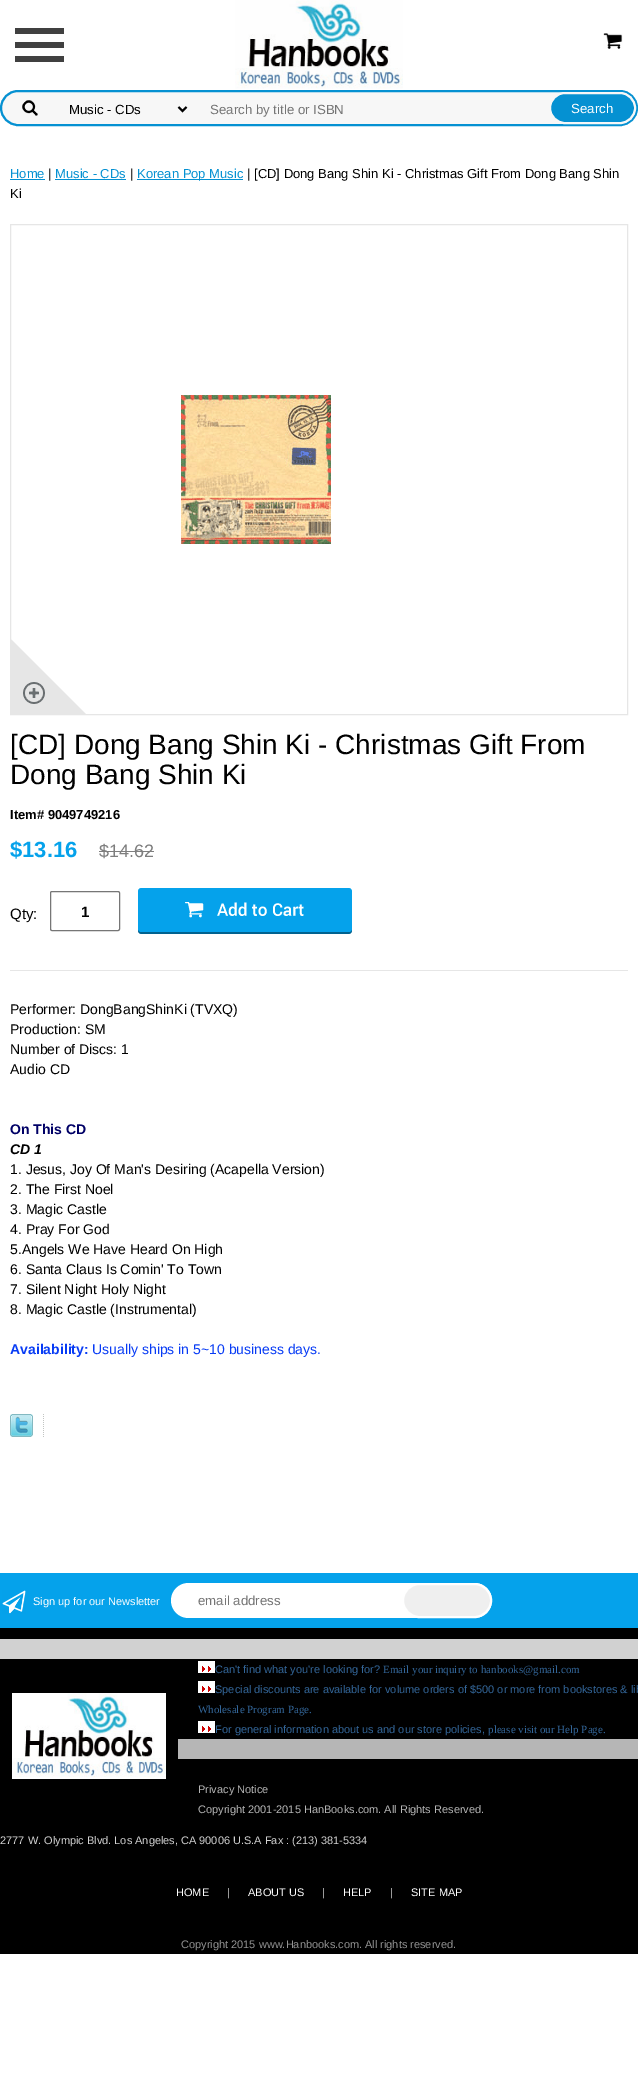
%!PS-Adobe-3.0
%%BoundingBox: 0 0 638 2099
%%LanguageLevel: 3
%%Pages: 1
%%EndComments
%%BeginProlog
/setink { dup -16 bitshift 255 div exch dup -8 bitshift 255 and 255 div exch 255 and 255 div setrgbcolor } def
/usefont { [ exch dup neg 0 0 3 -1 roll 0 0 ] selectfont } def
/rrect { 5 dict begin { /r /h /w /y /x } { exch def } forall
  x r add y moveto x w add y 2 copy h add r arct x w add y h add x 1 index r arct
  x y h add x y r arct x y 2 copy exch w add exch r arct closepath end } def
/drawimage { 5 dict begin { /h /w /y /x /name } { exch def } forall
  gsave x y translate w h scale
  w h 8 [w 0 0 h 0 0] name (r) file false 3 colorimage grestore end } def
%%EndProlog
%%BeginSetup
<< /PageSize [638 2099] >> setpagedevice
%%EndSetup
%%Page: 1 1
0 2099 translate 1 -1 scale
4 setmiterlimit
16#FFFFFF setink
0 0 638 2099 rectfill
(img1.raw) 603 33 20 16 drawimage
(img2.raw) 15 28 49 34 drawimage
(img3.raw) 235 0 168 89 drawimage
16#F7F7F7 setink
0 90 638 36 18 rrect fill
(img4.raw) 22 100 16 16 drawimage
16#0591D2 setink
2 setlinewidth
1 91 636 34 17 rrect stroke
16#000000 setink
178.5 107 moveto 182.5 111 lineto 186.5 107 lineto stroke
/LiberationSans-Regular 13.25 usefont
69 114 moveto (Music - CDs) show
16#757575 setink
210 114 moveto (Search by title or ISBN) show
16#0591D2 setink
550 93 85 30 15 rrect gsave fill grestore
16#F7F7F7 setink
stroke
16#FFFFFF setink
571 113 moveto (Search) show
/LiberationSans-Regular 13 usefont
16#0591D2 setink
10 178 moveto (Home) show
10 179 35 1 rectfill
16#000000 setink
48 178 moveto (|) show
16#0591D2 setink
55 178 moveto (Music - CDs) show
55 179 71 1 rectfill
16#000000 setink
130 178 moveto (|) show
16#0591D2 setink
137 179 106 1 rectfill
137 178 moveto (Korean Pop Music) show
16#000000 setink
247 178 moveto (| [CD] Dong Bang Shin Ki - Christmas Gift From Dong Bang Shin) show
10 198 moveto (Ki) show
16#E6E6E6 setink
1 setlinewidth
10.5 224.5 617 490 rectstroke
(img5.raw) 181 395 150 149 drawimage
(img6.raw) 11 639 75 75 drawimage
/LiberationSans-Regular 28 usefont
16#000000 setink
10 754 moveto ([CD] Dong Bang Shin Ki - Christmas Gift From) show
10 784 moveto (Dong Bang Shin Ki) show
/LiberationSans-Bold 13 usefont
10 819 moveto (Item# 9049749216) show
/LiberationSans-Bold 22 usefont
16#05A2EB setink
10 857 moveto ($13.16) show
/LiberationSans-Regular 18 usefont
16#7E7E7E setink
99 857 moveto ($14.62) show
99 851 55 1 rectfill
/LiberationSans-Regular 15 usefont
16#000000 setink
10 919 moveto (Qty:) show
16#767676 setink
50.5 891.5 69 39 1.5 rrect stroke
/LiberationSans-Bold 15 usefont
16#000000 setink
81 917 moveto (1) show
(img7.raw) 138 888 214 46 drawimage
16#E6E6E6 setink
10 970 618 1 rectfill
/LiberationSans-Regular 14 usefont
16#000000 setink
[
    [(Performer: DongBangShinKi \(TVXQ\)) 10 1014]
    [(Production: SM) 10 1034]
    [(Number of Discs: 1) 10 1054]
    [(Audio CD) 10 1074]
] { aload pop moveto show } forall
/LiberationSans-Bold 14 usefont
16#000066 setink
10 1134 moveto (On This CD) show
/LiberationSans-BoldItalic 14 usefont
16#000000 setink
10 1154 moveto (CD 1) show
/LiberationSans-Regular 14 usefont
[
    [(1. Jesus, Joy Of Man's Desiring \(Acapella Version\)) 10 1174]
    [(2. The First Noel) 10 1194]
    [(3. Magic Castle) 10 1214]
    [(4. Pray For God) 10 1234]
    [(5.Angels We Have Heard On High) 10 1254]
    [(6. Santa Claus Is Comin' To Town) 10 1274]
    [(7. Silent Night Holy Night) 10 1294]
    [(8. Magic Castle \(Instrumental\)) 10 1314]
] { aload pop moveto show } forall
/LiberationSans-Bold 14 usefont
16#073BF5 setink
10 1354 moveto (Availability:) show
/LiberationSans-Regular 14 usefont
92 1354 moveto (Usually ships in 5~10 business days.) show
(img8.raw) 10 1414 23 23 drawimage
(img9.raw) 43 1414 1 23 drawimage
16#000000 setink
0 1628 638 326 rectfill
16#05A2EB setink
0 1573 638 55 rectfill
(img10.raw) 2 1590 24 24 drawimage
/LiberationSans-Regular 11 usefont
16#FFFFFF setink
33 1605 moveto (Sign up for our Newsletter) show
171 1583 321 35 17.5 rrect fill
/LiberationSans-Regular 13.25 usefont
16#757575 setink
198 1605 moveto (email address) show
16#EFEFEF setink
403 1584 88 33 16.5 rrect gsave fill grestore
16#FFFFFF setink
2 setlinewidth
stroke
16#D1D1D1 setink
0 1639 638 20 rectfill
(img11.raw) 12 1693 154 86 drawimage
(img12.raw) 198 1661 17 12 drawimage
/LiberationSans-Regular 11 usefont
16#336699 setink
215 1673 moveto (Can't find what you're looking for?) show
/LiberationSerif-Regular 11 usefont
383 1673 moveto (Email your inquiry to hanbooks@gmail.com) show
(img12.raw) 198 1681 17 12 drawimage
/LiberationSans-Regular 11 usefont
215 1693 moveto (Special discounts are available for volume orders of $500 or more from bookstores & lib) show
/LiberationSerif-Regular 11 usefont
198 1713 moveto (Wholesale Program Page.) show
(img12.raw) 198 1721 17 12 drawimage
/LiberationSans-Regular 11 usefont
215 1733 moveto (For general information about us and our store policies,) show
/LiberationSerif-Regular 11 usefont
488 1733 moveto (please visit our Help Page.) show
16#B6B6B6 setink
178 1739 460 20 rectfill
/LiberationSans-Regular 11 usefont
198 1793 moveto (Privacy Notice) show
198 1813 moveto (Copyright 2001-2015 HanBooks.com. All Rights Reserved.) show
16#D3D3D3 setink
0 1844 moveto (2777 W. Olympic Blvd. Los Angeles, CA 90006 U.S.A Fax : \(213\) 381-5334) show
16#FFFFFF setink
176 1896 moveto (HOME) show
16#D3D3D3 setink
227 1896 moveto (|) show
16#FFFFFF setink
248 1896 moveto (ABOUT US) show
16#D3D3D3 setink
322 1896 moveto (|) show
16#FFFFFF setink
343 1896 moveto (HELP) show
16#D3D3D3 setink
390 1896 moveto (|) show
16#FFFFFF setink
411 1896 moveto (SITE MAP) show
16#939393 setink
181 1948 moveto (Copyright 2015 www.Hanbooks.com. All rights reserved.) show
showpage
%%EOF
